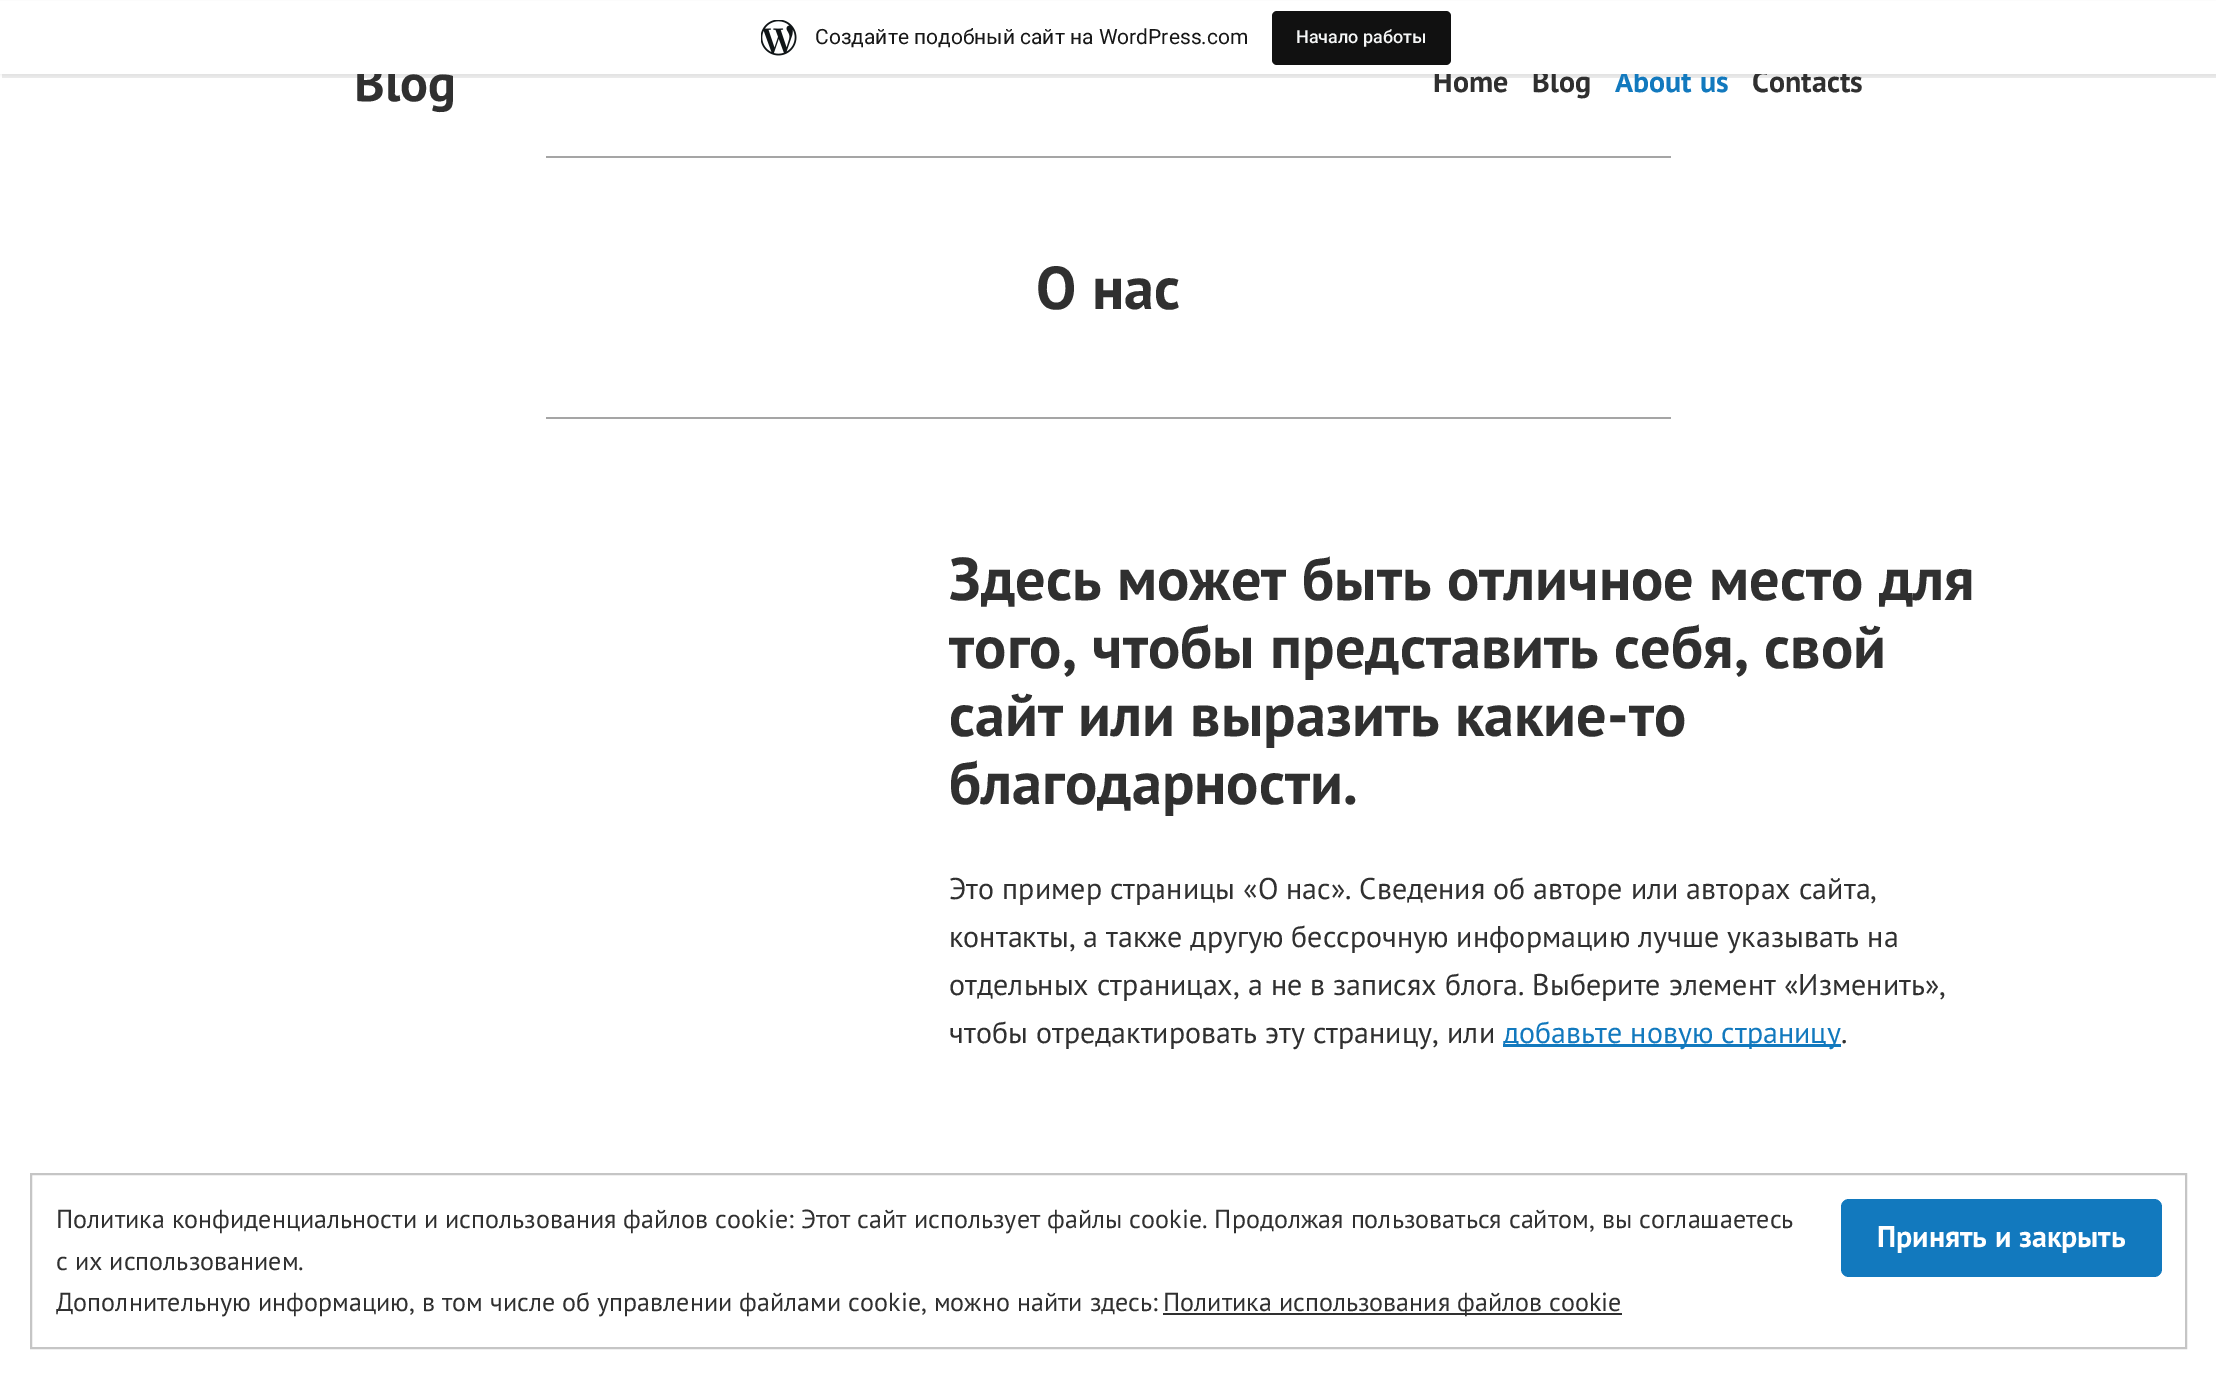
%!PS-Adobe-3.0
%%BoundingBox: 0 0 2216 1378
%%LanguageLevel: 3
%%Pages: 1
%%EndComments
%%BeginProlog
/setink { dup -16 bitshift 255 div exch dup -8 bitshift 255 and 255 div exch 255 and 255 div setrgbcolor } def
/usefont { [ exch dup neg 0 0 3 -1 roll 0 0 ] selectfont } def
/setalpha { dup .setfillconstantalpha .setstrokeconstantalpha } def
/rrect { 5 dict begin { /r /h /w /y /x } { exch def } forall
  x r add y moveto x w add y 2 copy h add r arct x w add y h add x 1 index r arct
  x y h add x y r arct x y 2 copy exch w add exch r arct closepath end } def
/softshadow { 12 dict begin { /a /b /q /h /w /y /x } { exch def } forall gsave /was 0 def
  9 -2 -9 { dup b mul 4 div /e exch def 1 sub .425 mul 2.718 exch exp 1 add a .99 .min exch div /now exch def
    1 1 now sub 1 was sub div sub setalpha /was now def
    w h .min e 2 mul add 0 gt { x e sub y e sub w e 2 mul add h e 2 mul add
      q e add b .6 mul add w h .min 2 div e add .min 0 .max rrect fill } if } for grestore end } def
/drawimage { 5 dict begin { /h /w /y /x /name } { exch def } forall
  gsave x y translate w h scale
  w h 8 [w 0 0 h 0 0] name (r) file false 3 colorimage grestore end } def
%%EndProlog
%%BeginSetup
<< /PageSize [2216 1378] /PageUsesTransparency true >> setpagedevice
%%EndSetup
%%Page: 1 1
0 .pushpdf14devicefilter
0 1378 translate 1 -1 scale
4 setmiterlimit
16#FFFFFF setink
0 0 2216 1378 rectfill
16#000000 setink
0 2 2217 73 0 1.5 0.05 softshadow
0.08 setalpha
2 74 moveto 2 78 lineto 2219 78 lineto 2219 5 lineto 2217 5 lineto 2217 74 lineto closepath fill
/PTSans-Bold 52 usefont
1 setalpha
16#303030 setink
354 101 moveto (Blog) show
/PTSans-Bold 30 usefont
1433 92 moveto (Home) show
1532 92 moveto (Blog) show
16#1279BE setink
1615 92 moveto (About us) show
16#303030 setink
1752 92 moveto (Contacts) show
16#FFFFFF setink
0 1 2216 73 rectfill
(img1.raw) 761 20 36 36 drawimage
/Roboto-Regular 21 usefont
16#171717 setink
815 44 moveto (Создайте подобный сайт на WordPress.com) show
16#111111 setink
1272 11 179 54 5 rrect fill
/Roboto-Medium 18 usefont
16#F6F7F7 setink
1296 43 moveto (Начало работы) show
16#A5A5A5 setink
546 156 1125 2 rectfill
/PTSans-Bold 60.3 usefont
16#303030 setink
1036 309 moveto (О нас) show
16#A5A5A5 setink
546 417 1125 2 rectfill
16#303030 setink
[
    [(Здесь может быть отличное место для) 949 600]
    [(того, чтобы представить себя, свой) 949 668]
    [(сайт или выразить какие-то) 949 736]
    [(благодарности.) 949 804]
] { aload pop moveto show } forall
/PTSans-Regular 30 usefont
[
    [(Это пример страницы «О нас». Сведения об авторе или авторах сайта,) 949 899]
    [(контакты, а также другую бессрочную информацию лучше указывать на) 949 947]
    [(отдельных страницах, а не в записях блога. Выберите элемент «Изменить»,) 949 995]
    [(чтобы отредактировать эту страницу, или) 949 1043]
] { aload pop moveto show } forall
16#1279BE setink
1503 1044 338 3 rectfill
1503 1043 moveto (добавьте новую страницу) show
16#303030 setink
1841 1043 moveto (.) show
16#C5C5C5 setink
2 setlinewidth
31 1174 2155 174 rectstroke
/PTSans-Regular 26.1 usefont
16#303030 setink
56 1228 moveto (Политика конфиденциальности и использования файлов сookie: Этот сайт использует файлы cookie. Продолжая пользоваться сайтом, вы соглашаетесь) show
16#1279BE setink
1841 1199 321 78 8 rrect fill
/PTSans-Bold 30 usefont
16#FFFFFF setink
1877 1247 moveto (Принять и закрыть) show
/PTSans-Regular 26.1 usefont
16#303030 setink
56 1270 moveto (с их использованием.) show
56 1311 moveto (Дополнительную информацию, в том числе об управлении файлами cookie, можно найти здесь:) show
1163 1313 459 2 rectfill
1163 1311 moveto (Политика использования файлов cookie) show
.poppdf14devicefilter showpage
%%EOF
